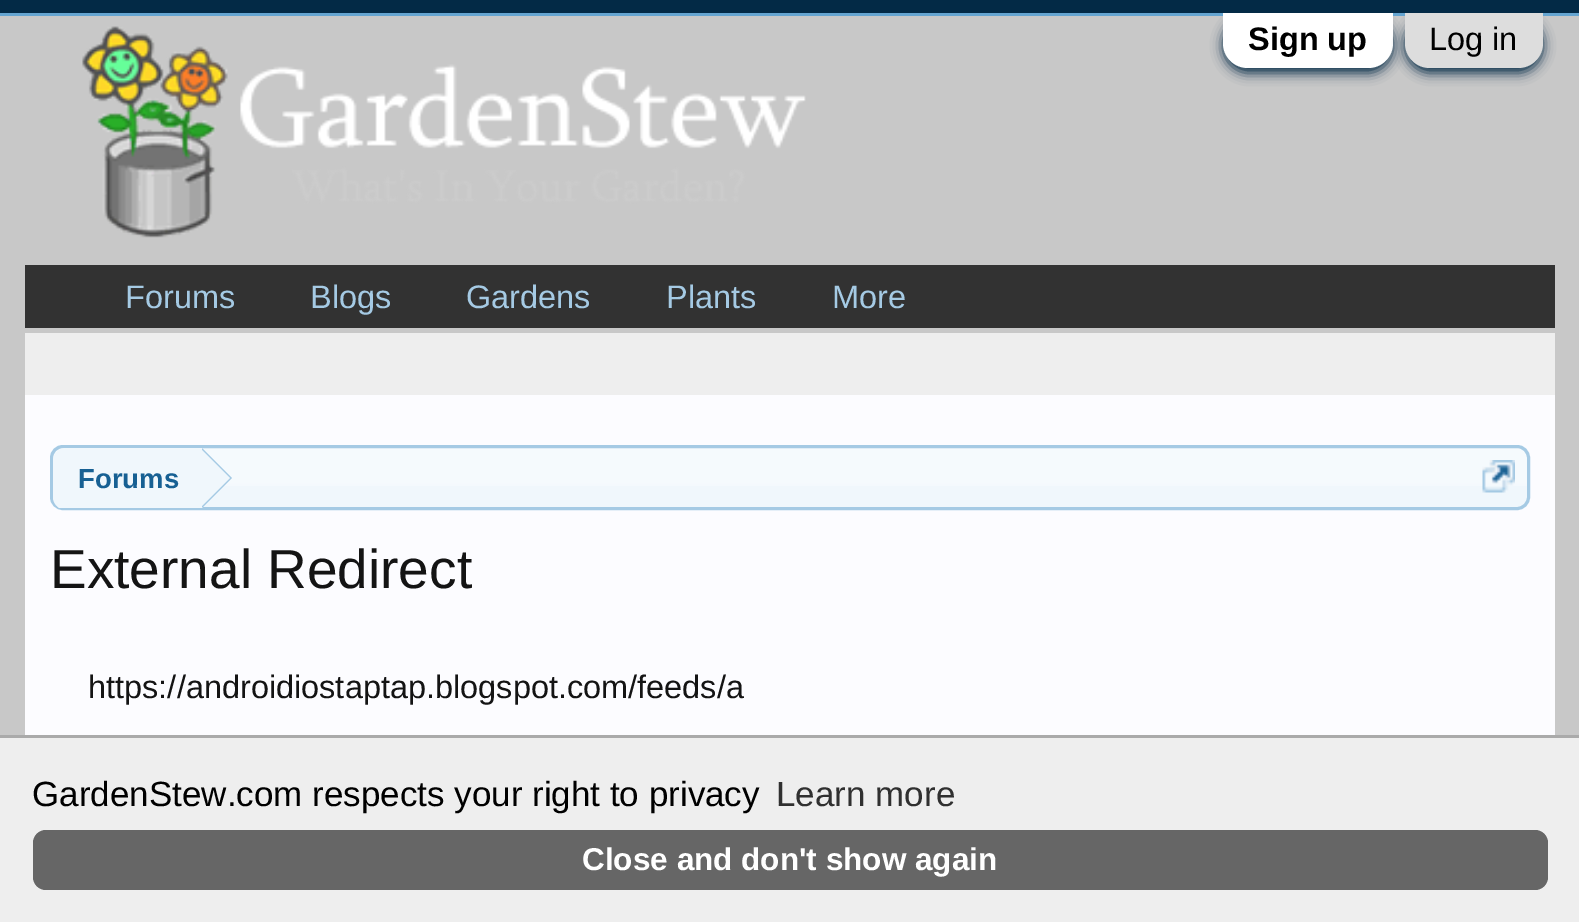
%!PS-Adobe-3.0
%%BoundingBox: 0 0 1579 922
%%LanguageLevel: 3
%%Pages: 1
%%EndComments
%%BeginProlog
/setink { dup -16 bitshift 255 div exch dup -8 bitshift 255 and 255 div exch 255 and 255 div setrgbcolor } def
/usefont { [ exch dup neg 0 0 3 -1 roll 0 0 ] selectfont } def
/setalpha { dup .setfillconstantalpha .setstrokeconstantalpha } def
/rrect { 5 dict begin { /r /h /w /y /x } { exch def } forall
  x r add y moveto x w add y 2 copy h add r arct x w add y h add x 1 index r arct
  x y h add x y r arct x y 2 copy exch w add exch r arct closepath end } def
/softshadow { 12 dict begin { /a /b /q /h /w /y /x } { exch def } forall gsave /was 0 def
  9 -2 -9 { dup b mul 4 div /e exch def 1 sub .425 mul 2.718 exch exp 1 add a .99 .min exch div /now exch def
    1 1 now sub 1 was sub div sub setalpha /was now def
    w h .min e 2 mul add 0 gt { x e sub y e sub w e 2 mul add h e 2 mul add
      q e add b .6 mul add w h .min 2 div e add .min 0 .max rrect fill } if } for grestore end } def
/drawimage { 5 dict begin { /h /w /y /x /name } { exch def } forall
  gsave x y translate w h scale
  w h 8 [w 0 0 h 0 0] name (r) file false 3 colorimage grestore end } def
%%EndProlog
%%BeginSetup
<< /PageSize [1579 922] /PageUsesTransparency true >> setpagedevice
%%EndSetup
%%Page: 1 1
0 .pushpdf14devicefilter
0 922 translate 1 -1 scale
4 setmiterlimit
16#C8C8C8 setink
0 0 1579 922 rectfill
16#032A46 setink
0 0 1579 13 rectfill
16#65A5D1 setink
0 13 1579 3 rectfill
16#032A46 setink
1223 18 170 55 25 6 1 softshadow
16#FFFFFF setink
1223 13 moveto 1393 13 lineto 1393 43 lineto 1393 57 1382 68 1368 68 curveto 1248 68 lineto 1234 68 1223 57 1223 43 curveto closepath fill
/LiberationSans-Bold 32.5 usefont
16#000000 setink
1248 50 moveto (Sign up) show
16#032A46 setink
1405 18 138 55 25 6 1 softshadow
16#DDDDDD setink
1405 13 moveto 1543 13 lineto 1543 43 lineto 1543 57 1532 68 1518 68 curveto 1430 68 lineto 1416 68 1405 57 1405 43 curveto closepath fill
/LiberationSans-Regular 32.5 usefont
16#000000 setink
1429 50 moveto (Log in) show
(img1.raw) 82 26 724 212 drawimage
16#323232 setink
25 265 1530 63 rectfill
16#A5CAE4 setink
[
    [(Forums) 125 308]
    [(Blogs) 310 308]
    [(Gardens) 466 308]
    [(Plants) 666 308]
    [(More) 832 308]
] { aload pop moveto show } forall
16#EEEEEE setink
25 333 1530 62 rectfill
16#FCFCFF setink
25 395 1530 340 rectfill
16#F0F7FC setink
50 445 1480 65 13 rrect fill
(img2.raw) 50 448 1480 38 drawimage
16#A5CAE4 setink
3 setlinewidth
51.5 446.5 1477 62 11.5 rrect stroke
gsave
53 448 1475 60 10 rrect clip newpath
16#F0F7FC setink
66 448 moveto 203 448 lineto 203 510 lineto 66 510 lineto 59 510 53 504 53 497 curveto 53 461 lineto 53 454 59 448 66 448 curveto closepath fill
grestore
/LiberationSans-Bold 27.5 usefont
16#176093 setink
78 488 moveto (Forums) show
16#A5CAE4 setink
202 508 moveto 202 448 lineto 232 478 lineto closepath fill
16#F0F7FC setink
200 508 moveto 200 448 lineto 230 478 lineto closepath fill
(img3.raw) 1482 460 33 33 drawimage
/LiberationSans-Regular 55 usefont
16#141414 setink
50 588 moveto (External Redirect) show
/LiberationSans-Regular 32.5 usefont
88 698 moveto (https://androidiostaptap.blogspot.com/feeds/a) show
16#EEEEEE setink
0 738 1579 184 rectfill
16#AAAAAA setink
0 735 1579 3 rectfill
/LiberationSans-Regular 35 usefont
16#000000 setink
32 806 moveto (GardenStew.com respects your right to privacy) show
16#303030 setink
776 806 moveto (Learn more) show
16#666666 setink
33 830 1515 60 13 rrect fill
/LiberationSans-Bold 31.5 usefont
16#FFFFFF setink
582 870 moveto (Close and don't show again) show
.poppdf14devicefilter showpage
%%EOF
